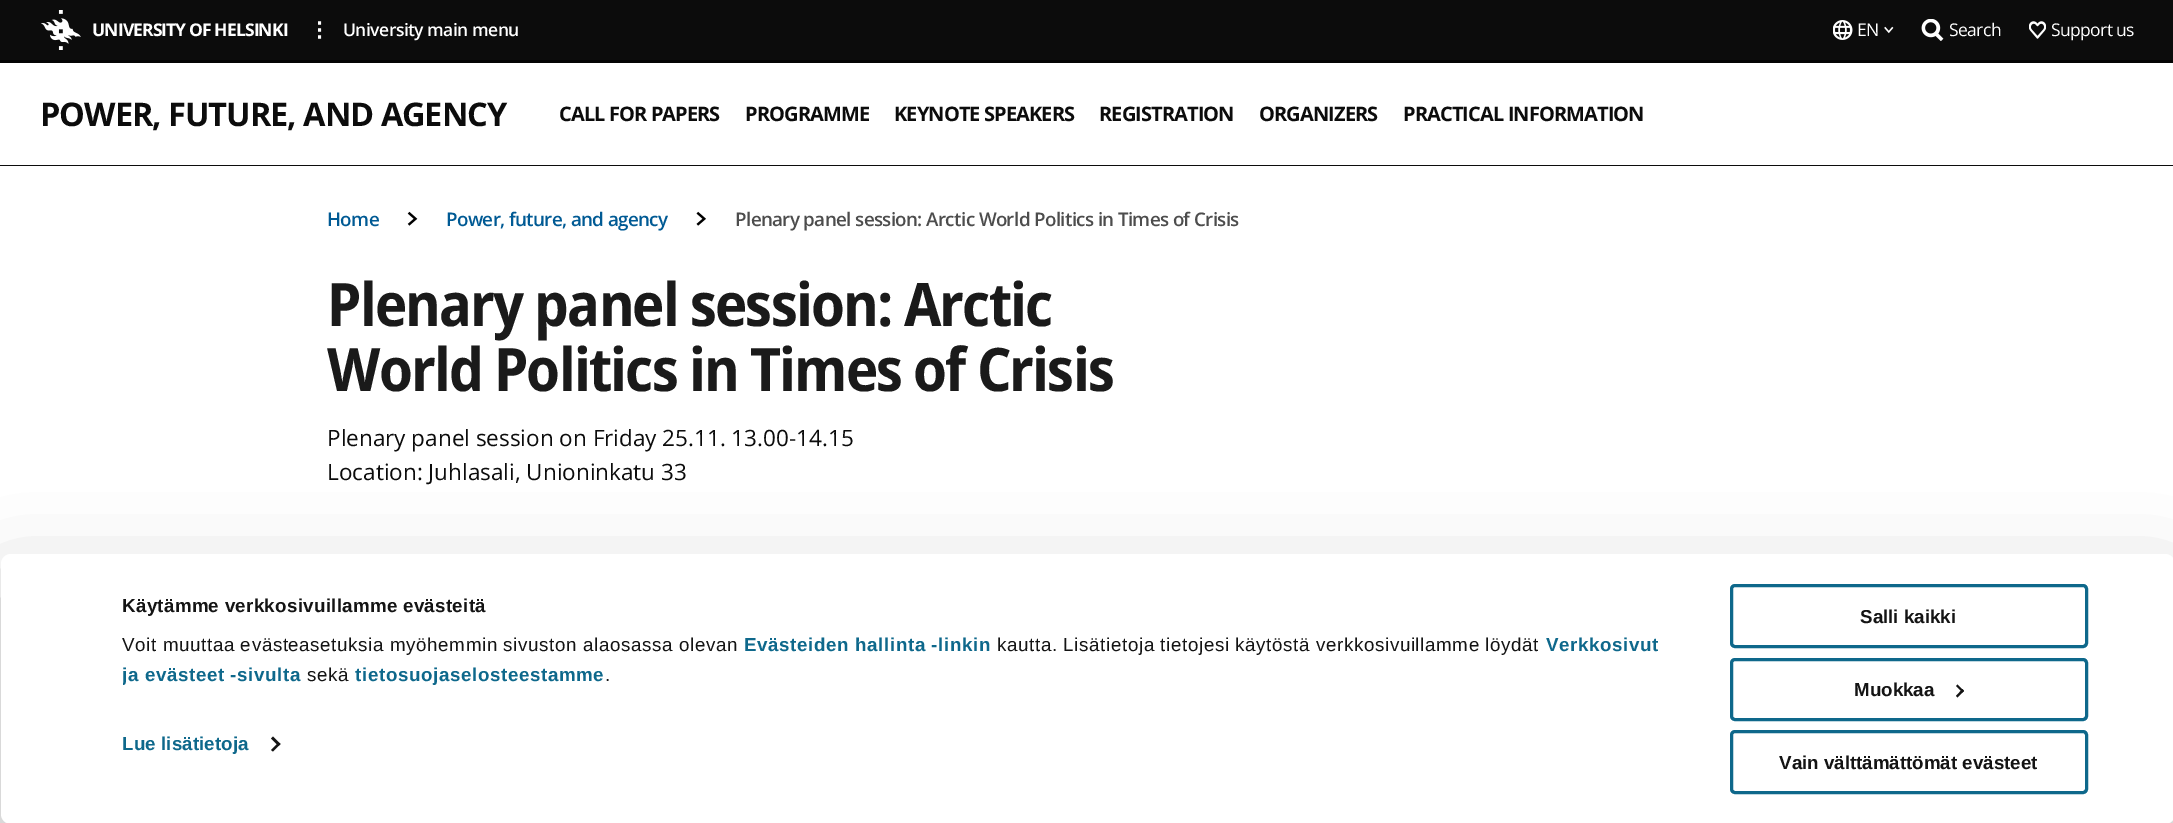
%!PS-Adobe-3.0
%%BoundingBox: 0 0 2173 823
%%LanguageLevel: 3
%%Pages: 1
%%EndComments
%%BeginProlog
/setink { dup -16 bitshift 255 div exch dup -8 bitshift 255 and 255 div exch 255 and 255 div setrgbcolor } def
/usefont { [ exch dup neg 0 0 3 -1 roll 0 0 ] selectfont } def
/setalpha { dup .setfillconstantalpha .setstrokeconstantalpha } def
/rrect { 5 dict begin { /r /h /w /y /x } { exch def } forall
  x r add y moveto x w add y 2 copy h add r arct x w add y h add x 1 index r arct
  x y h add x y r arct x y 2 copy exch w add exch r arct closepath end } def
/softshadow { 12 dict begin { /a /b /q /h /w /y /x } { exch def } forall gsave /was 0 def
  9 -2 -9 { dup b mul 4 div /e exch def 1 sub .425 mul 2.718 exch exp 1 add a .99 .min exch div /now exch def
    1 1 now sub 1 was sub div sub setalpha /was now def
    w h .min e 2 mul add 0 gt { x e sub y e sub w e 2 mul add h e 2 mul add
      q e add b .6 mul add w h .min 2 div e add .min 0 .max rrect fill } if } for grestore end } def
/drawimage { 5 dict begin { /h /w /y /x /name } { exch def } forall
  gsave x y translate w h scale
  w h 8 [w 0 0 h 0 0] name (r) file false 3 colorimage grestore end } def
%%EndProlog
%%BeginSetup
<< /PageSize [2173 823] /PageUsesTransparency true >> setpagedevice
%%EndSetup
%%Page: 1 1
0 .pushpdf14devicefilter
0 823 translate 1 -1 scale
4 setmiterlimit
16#FFFFFF setink
0 0 2173 823 rectfill
[
    [0 165 2173 1 16#0C0C0C]
    [0 0 2173 60 16#0C0C0C]
    [0 60 2173 3 16#040404]
] { aload pop setink rectfill } forall
(img1.raw) 41 10 40 40 drawimage
/OpenSans-Bold 17.5 usefont
16#FFFFFF setink
92 36 moveto -0.9 0 (UNIVERSITY OF HELSINKI) ashow
(img2.raw) 318 21 4 18 drawimage
/OpenSans-SemiBold 17.5 usefont
343 36 moveto -0.55 0 (University main menu) ashow
(img3.raw) 1833 20 20 20 drawimage
/OpenSans-Regular 17.5 usefont
1857 36 moveto -0.62 0 (EN) ashow
(img4.raw) 1884 26 10 8 drawimage
(img5.raw) 1921 19 23 22 drawimage
1949 36 moveto -0.62 0 (Search) ashow
(img6.raw) 2029 21 17 18 drawimage
2051 36 moveto -0.62 0 (Support us) ashow
/OpenSans-Bold 32.5 usefont
16#0C0C0C setink
40 126 moveto -1 0 (POWER, FUTURE, AND AGENCY) ashow
/OpenSans-Bold 20 usefont
559 121 moveto -0.9 0 (CALL FOR PAPERS) ashow
745 121 moveto -0.9 0 (PROGRAMME) ashow
894 121 moveto -0.9 0 (KEYNOTE SPEAKERS) ashow
1099 121 moveto -0.9 0 (REGISTRATION) ashow
1259 121 moveto -0.9 0 (ORGANIZERS) ashow
1403 121 moveto -0.9 0 (PRACTICAL INFORMATION) ashow
/OpenSans-SemiBold 18.75 usefont
16#005A94 setink
327 226 moveto -0.62 0 (Home) ashow
(img7.raw) 407 211 11 15 drawimage
446 226 moveto -0.62 0 (Power, future, and agency) ashow
(img8.raw) 696 211 10 15 drawimage
16#4D4D4D setink
735 226 moveto -0.62 0 (Plenary panel session: Arctic World Politics in Times of Crisis) ashow
/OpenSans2-Bold 60 usefont
16#1A1A1A setink
327 326 moveto -1.75 0 (Plenary panel session: Arctic) ashow
327 391 moveto -1.75 0 (World Politics in Times of Crisis) ashow
/OpenSans-Regular 22.5 usefont
16#0C0C0C setink
327 446 moveto (Plenary panel session on Friday 25.11. 13.00-14.15) show
327 480 moveto (Location: Juhlasali, Unioninkatu 33) show
16#000000 setink
1 591 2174 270 10 44 0.3 softshadow
16#FFFFFF setink
1 554 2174 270 10 rrect fill
/LiberationSans-Bold 18.75 usefont
16#141414 setink
122 612 moveto 0.3 0 (Käytämme verkkosivuillamme evästeitä) ashow
/LiberationSans-Regular 18.75 usefont
122 651 moveto 0.62 0 (Voit muuttaa evästeasetuksia myöhemmin sivuston alaosassa olevan) ashow
/LiberationSans-Bold 18.75 usefont
16#0E688B setink
744 651 moveto 0.62 0 (Evästeiden hallinta -linkin) ashow
/LiberationSans-Regular 18.75 usefont
16#141414 setink
997 651 moveto 0.62 0 (kautta. Lisätietoja tietojesi käytöstä verkkosivuillamme löydät) ashow
/LiberationSans-Bold 18.75 usefont
16#0E688B setink
1546 651 moveto 0.62 0 (Verkkosivut) ashow
gsave
123 591 1572 99 rectclip
122 681 moveto 0.62 0 (ja evästeet -sivulta) ashow
grestore
/LiberationSans-Regular 18.75 usefont
16#141414 setink
307 681 moveto 0.62 0 (sekä) ashow
/LiberationSans-Bold 18.75 usefont
16#0E688B setink
355 681 moveto 0.62 0 (tietosuojaselosteestamme) ashow
/LiberationSans-Regular 18.75 usefont
16#141414 setink
605 681 moveto 0.62 0 (.) ashow
/LiberationSans-Bold 18.75 usefont
16#0E688B setink
122 750 moveto 0.1 0 (Lue lisätietoja) ashow
16#141414 setink
273 736.5 moveto 280.5 744 lineto 278.5 746 lineto 271 738.5 lineto closepath fill
278.5 742.5 moveto 280.5 744 lineto 273 751.5 lineto 271 750 lineto closepath fill
16#0E688B setink
3 setlinewidth
1731.5 585.5 355 61 3.5 rrect stroke
16#141414 setink
1860 623 moveto (Salli kaikki) show
16#0E688B setink
1731.5 659.5 355 60 3.5 rrect stroke
16#141414 setink
1854 696 moveto (Muokkaa) show
1957.5 684.5 moveto 1964 691 lineto 1962.5 692.5 lineto 1956 686 lineto closepath fill
1962.5 689 moveto 1964 691 lineto 1957.5 697.5 lineto 1956 696 lineto closepath fill
16#0E688B setink
1731.5 731.5 355 61 3.5 rrect stroke
16#141414 setink
1779 769 moveto (Vain välttämättömät evästeet) show
.poppdf14devicefilter showpage
%%EOF
